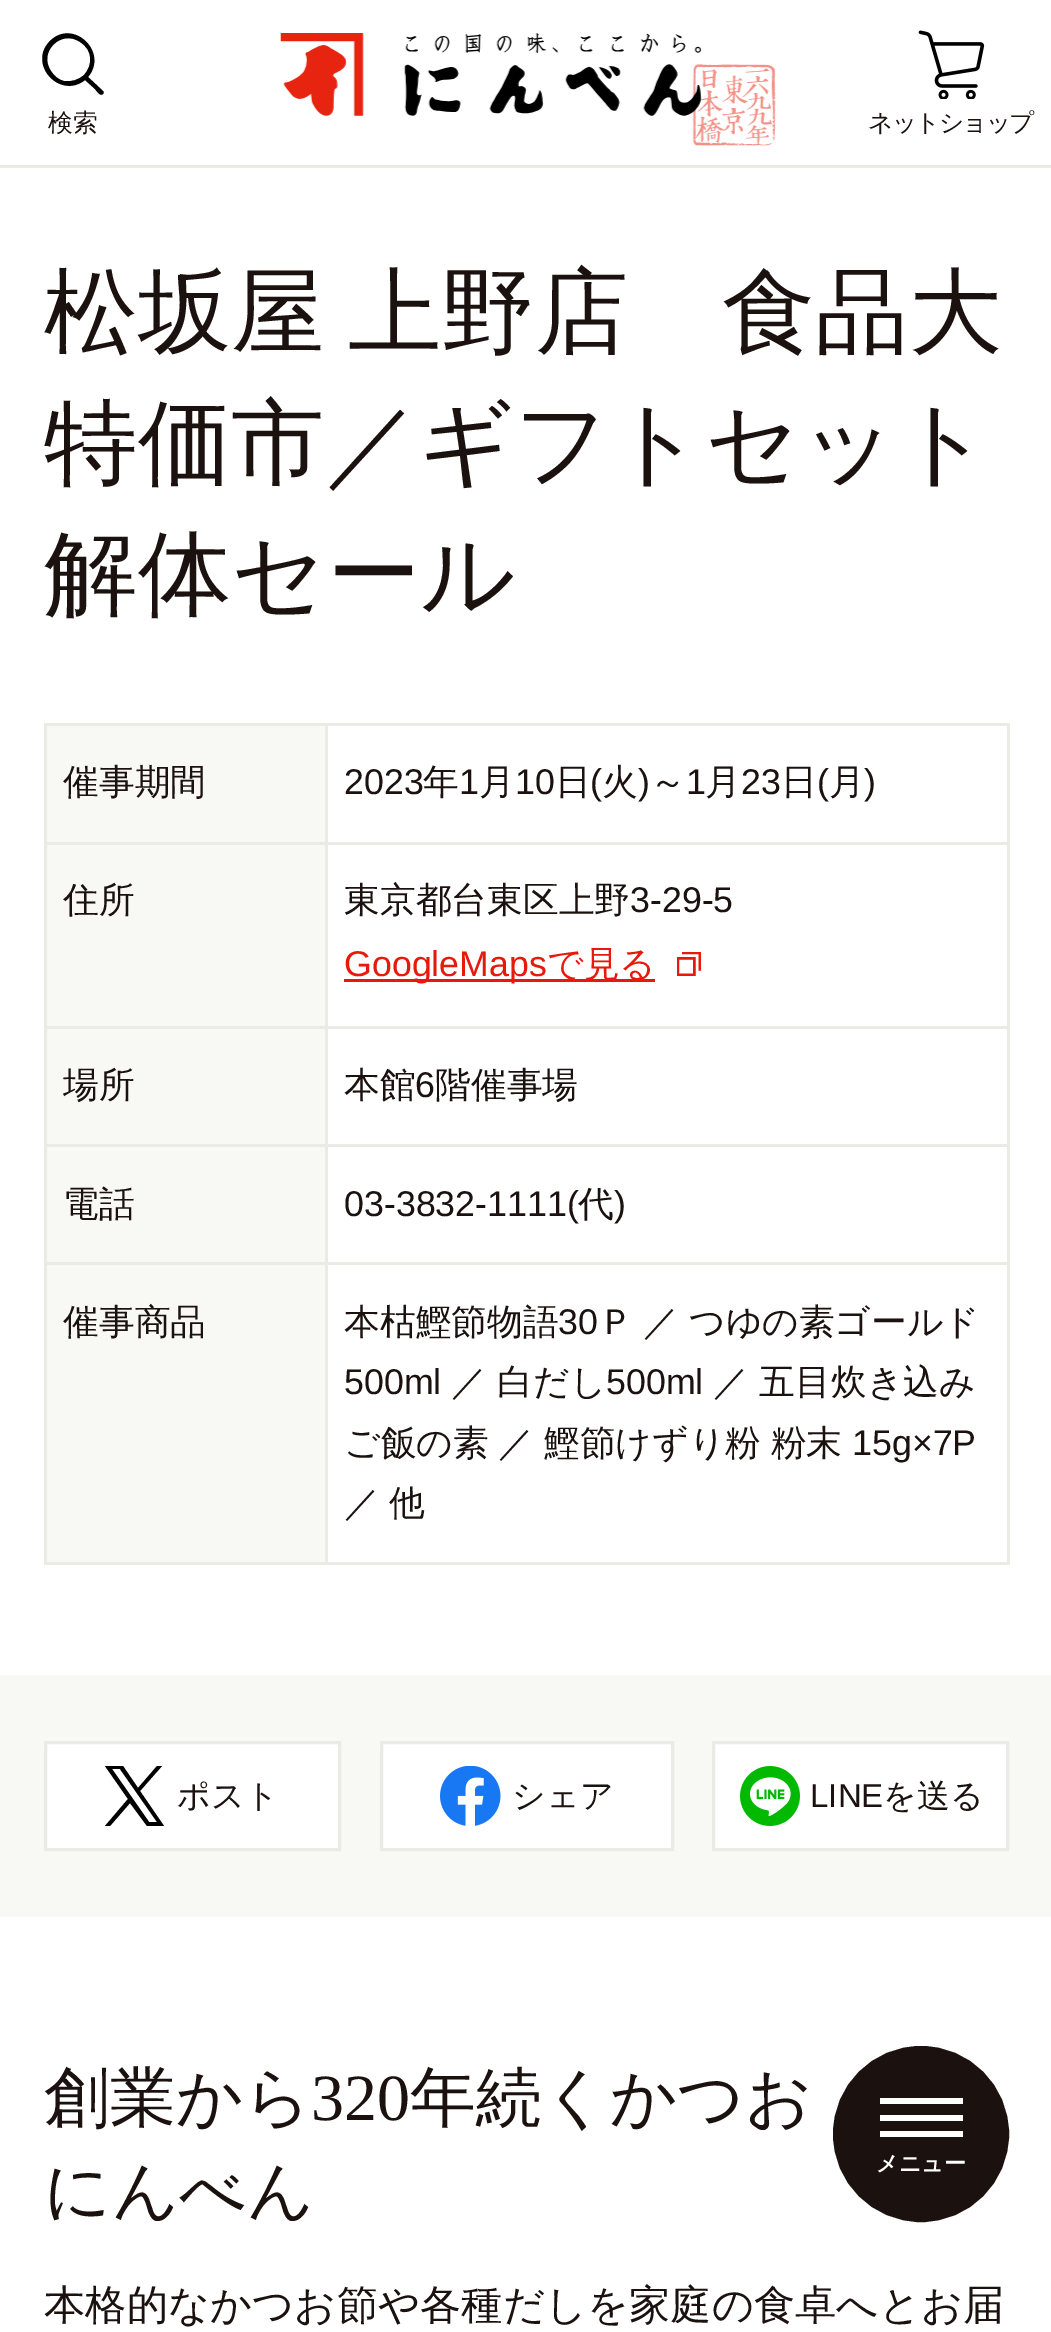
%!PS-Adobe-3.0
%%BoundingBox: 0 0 1051 2332
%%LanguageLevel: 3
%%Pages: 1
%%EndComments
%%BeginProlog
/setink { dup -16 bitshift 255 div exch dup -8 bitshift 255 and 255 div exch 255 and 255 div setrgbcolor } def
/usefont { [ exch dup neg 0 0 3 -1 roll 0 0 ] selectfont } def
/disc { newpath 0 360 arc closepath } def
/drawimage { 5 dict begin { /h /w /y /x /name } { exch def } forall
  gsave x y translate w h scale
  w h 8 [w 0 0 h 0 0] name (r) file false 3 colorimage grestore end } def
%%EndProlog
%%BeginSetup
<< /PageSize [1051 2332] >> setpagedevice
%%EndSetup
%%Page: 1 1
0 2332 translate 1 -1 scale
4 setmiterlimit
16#FFFFFF setink
0 0 1051 2332 rectfill
16#EAEBE4 setink
0 165 1051 3 rectfill
16#000000 setink
84 75 moveto 93 65 93 50 80 42 curveto 61 29 38 52 51 71 curveto 54 76 59 80 64 81 curveto 72 82 78 80 84 75 curveto 103 94 moveto 100 97 96 90 95 89 curveto 85 80 lineto 60 100 27 64 50 41 curveto 73 18 109 52 88 77 curveto 103 91 lineto 104 92 104 93 103 94 curveto closepath fill
/WenQuanYiZenHei-Medium 24.75 usefont
16#1B120F setink
48 131 moveto (検索) show
(img1.raw) 280 33 496 113 drawimage
(img2.raw) 918 30 67 69 drawimage
868 131 moveto -1.75 0 (ネットショップ) ashow
921 2134 86.5 disc gsave fill grestore
3 setlinewidth
stroke
[
    [880 2098 83 6 16#FFFFFF]
    [880 2115 83 6 16#FFFFFF]
    [880 2131 83 6 16#FFFFFF]
] { aload pop setink rectfill } forall
/WenQuanYiZenHei-Bold 22 usefont
876 2171 moveto (メニュー) show
/WenQuanYiZenHei-Medium 93.5 usefont
16#1B120F setink
44 344 moveto -5 0 32 (松坂屋 上野店　食品大) widthshow
44 475 moveto (特価市／ギフトセット) show
44 606 moveto (解体セール) show
[
    [47 726 278 116 16#F8F8F5]
    [325 723 684 3 16#EAEBE4]
    [325 842 684 3 16#EAEBE4]
    [325 1026 684 3 16#EAEBE4]
    [325 1144 684 3 16#EAEBE4]
    [325 1262 684 3 16#EAEBE4]
    [1007 1262 3 303 16#EAEBE4]
    [325 1562 684 3 16#EAEBE4]
    [325 1262 3 303 16#EAEBE4]
    [44 1262 283 3 16#EAEBE4]
    [325 1144 3 121 16#EAEBE4]
    [44 1144 283 3 16#EAEBE4]
    [325 1026 3 121 16#EAEBE4]
    [44 1026 283 3 16#EAEBE4]
    [325 842 3 187 16#EAEBE4]
    [44 842 283 3 16#EAEBE4]
    [325 723 3 121 16#EAEBE4]
    [44 723 283 3 16#EAEBE4]
    [44 1562 283 3 16#EAEBE4]
    [44 1262 3 303 16#EAEBE4]
    [44 1144 3 121 16#EAEBE4]
    [44 1026 3 121 16#EAEBE4]
    [44 842 3 187 16#EAEBE4]
    [44 723 3 121 16#EAEBE4]
] { aload pop setink rectfill } forall
/WenQuanYiZenHei-Medium 35.75 usefont
16#1B120F setink
63 794 moveto (催事期間) show
[
    [1007 1144 3 121 16#EAEBE4]
    [1007 1026 3 121 16#EAEBE4]
    [1007 842 3 187 16#EAEBE4]
    [1007 723 3 121 16#EAEBE4]
] { aload pop setink rectfill } forall
/LiberationSans-Regular 35.75 usefont
16#1B120F setink
344 794 moveto (2023) show
/WenQuanYiZenHei-Medium 35.75 usefont
423 794 moveto (年) show
/LiberationSans-Regular 35.75 usefont
459 794 moveto (1) show
/WenQuanYiZenHei-Medium 35.75 usefont
479 794 moveto (月) show
/LiberationSans-Regular 35.75 usefont
515 794 moveto (10) show
/WenQuanYiZenHei-Medium 35.75 usefont
555 794 moveto (日) show
/LiberationSans-Regular 35.75 usefont
590 794 moveto (\() show
/WenQuanYiZenHei-Medium 35.75 usefont
602 794 moveto (火) show
/LiberationSans-Regular 35.75 usefont
638 794 moveto (\)) show
/WenQuanYiZenHei-Medium 35.75 usefont
650 794 moveto (～) show
/LiberationSans-Regular 35.75 usefont
686 794 moveto (1) show
/WenQuanYiZenHei-Medium 35.75 usefont
705 794 moveto (月) show
/LiberationSans-Regular 35.75 usefont
741 794 moveto (23) show
/WenQuanYiZenHei-Medium 35.75 usefont
781 794 moveto (日) show
/LiberationSans-Regular 35.75 usefont
817 794 moveto (\() show
/WenQuanYiZenHei-Medium 35.75 usefont
829 794 moveto (月) show
/LiberationSans-Regular 35.75 usefont
864 794 moveto (\)) show
16#F8F8F5 setink
47 845 278 181 rectfill
/WenQuanYiZenHei-Medium 35.75 usefont
16#1B120F setink
63 912 moveto (住所) show
344 912 moveto (東京都台東区上野) show
/LiberationSans-Regular 35.75 usefont
630 912 moveto (3-29-5) show
16#E7190A setink
344 979 311 3 rectfill
344 976 moveto (GoogleMaps) show
/WenQuanYiZenHei-Medium 35.75 usefont
547 976 moveto (で見る) show
(img3.raw) 677 952 24 24 drawimage
16#F8F8F5 setink
47 1029 278 115 rectfill
16#1B120F setink
63 1097 moveto (場所) show
344 1097 moveto (本館) show
/LiberationSans-Regular 35.75 usefont
415 1097 moveto (6) show
/WenQuanYiZenHei-Medium 35.75 usefont
435 1097 moveto (階催事場) show
16#F8F8F5 setink
47 1147 278 115 rectfill
16#1B120F setink
63 1216 moveto (電話) show
/LiberationSans-Regular 35.75 usefont
344 1216 moveto (03-3832-1111\() show
/WenQuanYiZenHei-Medium 35.75 usefont
578 1216 moveto (代) show
/LiberationSans-Regular 35.75 usefont
614 1216 moveto (\)) show
16#F8F8F5 setink
47 1265 278 297 rectfill
/WenQuanYiZenHei-Medium 35.75 usefont
16#1B120F setink
63 1334 moveto (催事商品) show
344 1334 moveto (本枯鰹節物語) show
/LiberationSans-Regular 35.75 usefont
558 1334 moveto (30) show
/WenQuanYiZenHei-Medium 35.75 usefont
598 1334 moveto -1 0 32 (Ｐ ／ つゆの素ゴールド) widthshow
/LiberationSans-Regular 35.75 usefont
344 1394 moveto (500ml) show
/WenQuanYiZenHei-Medium 35.75 usefont
451 1394 moveto (／ 白だし) show
/LiberationSans-Regular 35.75 usefont
606 1394 moveto (500ml) show
/WenQuanYiZenHei-Medium 35.75 usefont
713 1394 moveto (／ 五目炊き込み) show
344 1455 moveto -1 0 32 (ご飯の素 ／ 鰹節けずり粉 粉末) widthshow
/LiberationSans-Regular 35.75 usefont
852 1455 moveto (15g×7P) show
/WenQuanYiZenHei-Medium 35.75 usefont
344 1515 moveto -1 0 32 (／ 他) widthshow
16#F8F8F5 setink
0 1675 1051 242 rectfill
16#FFFFFF setink
45.5 1742.5 moveto 339.5 1742.5 lineto 339.5 1849.5 lineto 45.5 1849.5 lineto closepath gsave fill grestore
16#EAEBE4 setink
stroke
16#000000 setink
140 1791 moveto 162 1766 lineto 157 1766 lineto 138 1788 lineto 123 1766 lineto 105 1766 lineto 128 1799 lineto 105 1826 lineto 110 1826 lineto 130 1803 lineto 147 1826 lineto 164 1826 lineto closepath 133 1799 moveto 112 1769 lineto 120 1769 lineto 157 1822 lineto 149 1822 lineto closepath fill
/WenQuanYiZenHei-Medium 33 usefont
16#1B120F setink
177 1807 moveto (ポスト) show
16#FFFFFF setink
381.5 1742.5 moveto 672.5 1742.5 lineto 672.5 1849.5 lineto 381.5 1849.5 lineto closepath gsave fill grestore
16#EAEBE4 setink
stroke
(img4.raw) 440 1766 61 60 drawimage
16#1B120F setink
512 1807 moveto (シェア) show
16#FFFFFF setink
713.5 1742.5 moveto 1007.5 1742.5 lineto 1007.5 1849.5 lineto 713.5 1849.5 lineto closepath gsave fill grestore
16#EAEBE4 setink
stroke
(img5.raw) 740 1766 60 60 drawimage
/LiberationSans-Regular 33 usefont
16#1B120F setink
810 1807 moveto (LINE) show
/WenQuanYiZenHei-Medium 33 usefont
883 1807 moveto (を送る) show
/WenQuanYiZenHei-Medium 66 usefont
44 2120 moveto (創業から) show
/LiberationSerif-Regular 66 usefont
311 2120 moveto (320) show
/WenQuanYiZenHei-Medium 66 usefont
410 2120 moveto (年続くかつお) show
44 2213 moveto (にんべん) show
/WenQuanYiZenHei-Medium 41.25 usefont
44 2319 moveto (本格的なかつお節や各種だしを家庭の食卓へとお届) show
showpage
%%EOF
